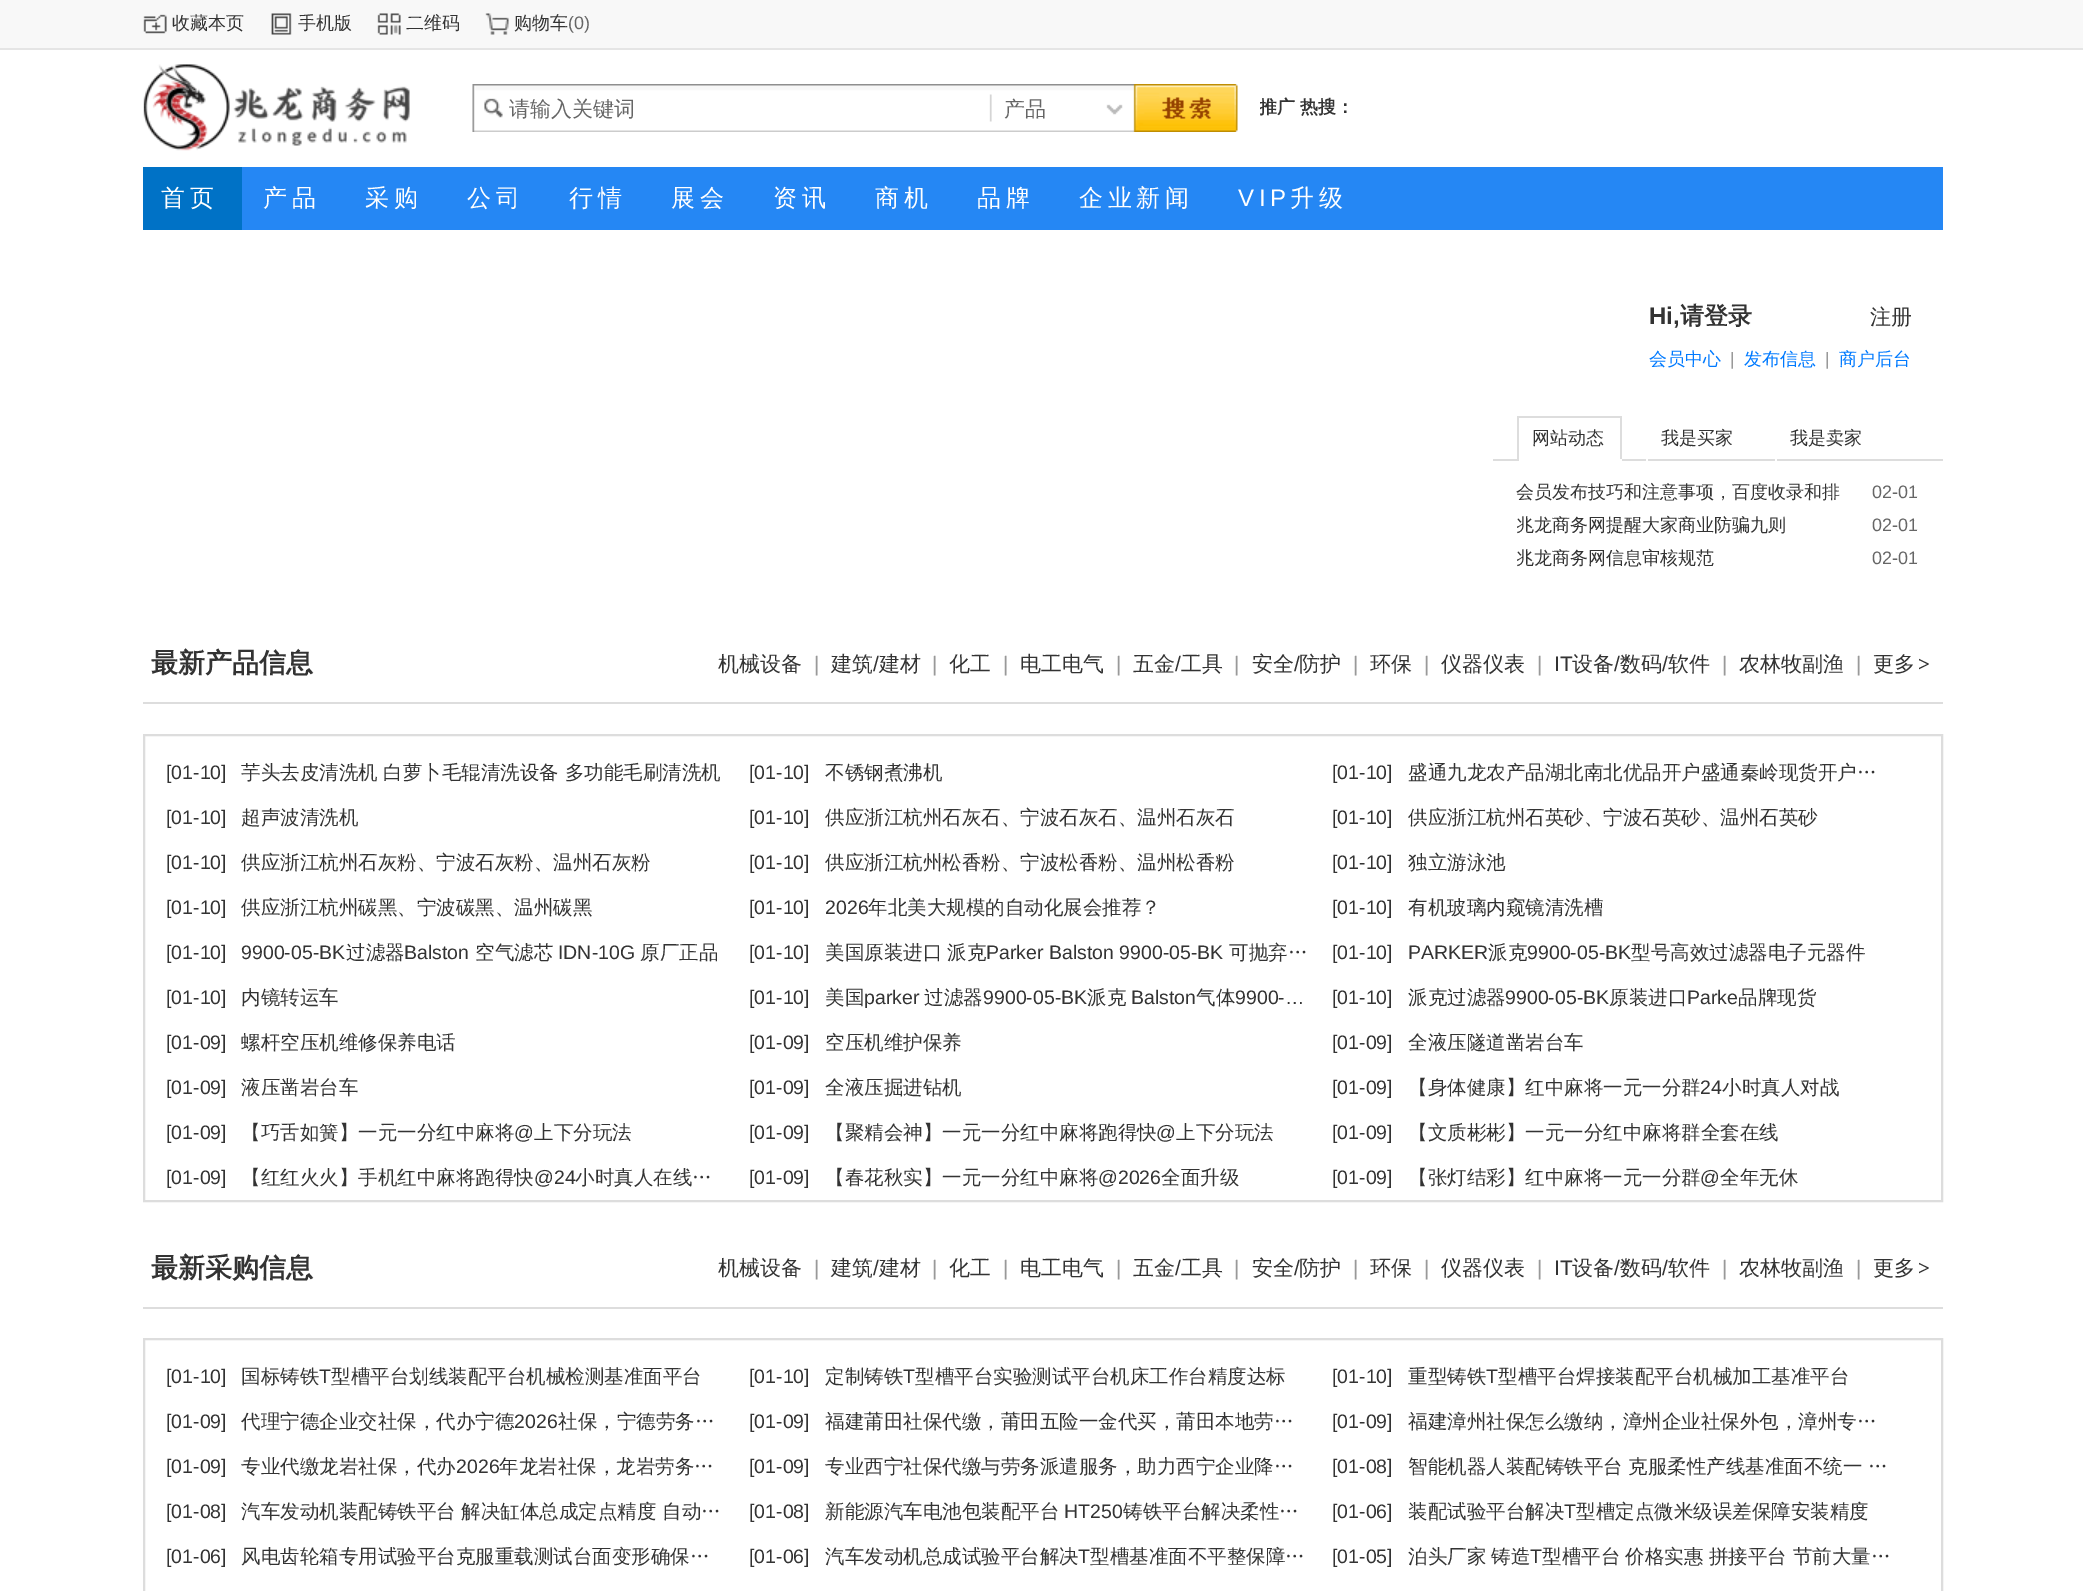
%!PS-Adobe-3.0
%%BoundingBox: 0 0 2083 1591
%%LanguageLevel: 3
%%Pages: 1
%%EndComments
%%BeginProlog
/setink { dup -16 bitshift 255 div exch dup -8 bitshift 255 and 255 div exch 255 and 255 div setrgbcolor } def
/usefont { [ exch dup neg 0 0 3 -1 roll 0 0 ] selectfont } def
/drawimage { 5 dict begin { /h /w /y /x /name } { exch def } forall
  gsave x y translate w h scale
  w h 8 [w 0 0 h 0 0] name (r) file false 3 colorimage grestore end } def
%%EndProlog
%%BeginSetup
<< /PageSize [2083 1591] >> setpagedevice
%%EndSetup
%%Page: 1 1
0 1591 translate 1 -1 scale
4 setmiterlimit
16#FFFFFF setink
0 0 2083 1591 rectfill
16#F8F8F8 setink
0 0 2083 48 rectfill
16#E5E5E5 setink
0 48 2083 2 rectfill
(img1.raw) 143 14 24 20 drawimage
/WenQuanYiZenHei-Medium 18 usefont
16#333333 setink
172 29 moveto (收藏本页) show
(img2.raw) 271 13 21 22 drawimage
298 29 moveto (手机版) show
(img3.raw) 377 13 24 22 drawimage
406 29 moveto (二维码) show
(img4.raw) 485 13 24 22 drawimage
514 29 moveto (购物车) show
/LiberationSans-Regular 18 usefont
16#666666 setink
568 29 moveto (\(0\)) show
(img5.raw) 143 64 267 87 drawimage
(img6.raw) 472 84 766 48 drawimage
/WenQuanYiZenHei-Medium 21 usefont
509 116 moveto (请输入关键词) show
1004 116 moveto (产品) show
gsave
1260 92 683 30 rectclip
/WenQuanYiZenHei-Bold 18 usefont
16#333333 setink
1259 113 moveto (推广) show
grestore
/WenQuanYiZenHei-Bold 18 usefont
16#333333 setink
1300 113 moveto (热搜：) show
16#2587F4 setink
242 167 1701 63 rectfill
16#0072C6 setink
143 167 99 63 rectfill
/WenQuanYiZenHei-Medium 24 usefont
16#FFFFFF setink
161 206 moveto 4.5 0 (首页) ashow
263 206 moveto 4.5 0 (产品) ashow
365 206 moveto 4.5 0 (采购) ashow
467 206 moveto 4.5 0 (公司) ashow
569 206 moveto 4.5 0 (行情) ashow
671 206 moveto 4.5 0 (展会) ashow
773 206 moveto 4.5 0 (资讯) ashow
875 206 moveto 4.5 0 (商机) ashow
977 206 moveto 4.5 0 (品牌) ashow
1079 206 moveto 4.5 0 (企业新闻) ashow
/LiberationSans-Regular 24 usefont
1238 206 moveto 4.5 0 (VIP) ashow
/WenQuanYiZenHei-Medium 24 usefont
1290 206 moveto 4.5 0 (升级) ashow
/LiberationSans-Bold 24 usefont
16#333333 setink
1649 324 moveto (Hi,) show
/WenQuanYiZenHei-Bold 24 usefont
1680 324 moveto (请登录) show
/WenQuanYiZenHei-Medium 21 usefont
1870 324 moveto (注册) show
/WenQuanYiZenHei-Medium 18 usefont
16#007AFF setink
1649 365 moveto (会员中心) show
/LiberationSans-Regular 18 usefont
16#999999 setink
1730 365 moveto (|) show
/WenQuanYiZenHei-Medium 18 usefont
16#007AFF setink
1744 365 moveto (发布信息) show
/LiberationSans-Regular 18 usefont
16#999999 setink
1825 365 moveto (|) show
/WenQuanYiZenHei-Medium 18 usefont
16#007AFF setink
1839 365 moveto (商户后台) show
[
    [1493 459 450 2 16#DDDDDD]
    [1517 416 105 2 16#DDDDDD]
    [1620 416 2 45 16#DDDDDD]
    [1517 459 105 2 16#FFFFFF]
    [1517 416 2 45 16#DDDDDD]
] { aload pop setink rectfill } forall
16#333333 setink
1532 444 moveto (网站动态) show
[
    [1749 459 2 2 16#FFFFFF]
    [1749 459 2 2 16#DDDDDD]
    [1646 459 2 2 16#FFFFFF]
] { aload pop setink rectfill } forall
16#333333 setink
1661 444 moveto (我是买家) show
[
    [1878 459 2 2 16#FFFFFF]
    [1878 459 2 2 16#DDDDDD]
    [1775 459 2 2 16#FFFFFF]
] { aload pop setink rectfill } forall
16#333333 setink
1790 444 moveto (我是卖家) show
1516 498 moveto (会员发布技巧和注意事项，百度收录和排) show
/LiberationSans-Regular 18 usefont
16#666666 setink
1872 498 moveto (02-01) show
gsave
1517 509 402 33 rectclip
/WenQuanYiZenHei-Medium 18 usefont
16#333333 setink
1516 531 moveto (兆龙商务网提醒大家商业防骗九则) show
grestore
1872 531 moveto (02-01) show
gsave
1517 542 402 33 rectclip
/WenQuanYiZenHei-Medium 18 usefont
16#333333 setink
1516 564 moveto (兆龙商务网信息审核规范) show
grestore
1872 564 moveto (02-01) show
16#DDDDDD setink
143 702 1800 2 rectfill
/WenQuanYiZenHei-Bold 27 usefont
16#333333 setink
151 672 moveto (最新产品信息) show
/WenQuanYiZenHei-Medium 21 usefont
718 671 moveto (机械设备) show
/LiberationSans-Regular 21 usefont
16#999999 setink
814 671 moveto (|) show
/WenQuanYiZenHei-Medium 21 usefont
16#333333 setink
831 671 moveto (建筑) show
/LiberationSans-Regular 21 usefont
873 671 moveto (/) show
/WenQuanYiZenHei-Medium 21 usefont
879 671 moveto (建材) show
/LiberationSans-Regular 21 usefont
16#999999 setink
932 671 moveto (|) show
/WenQuanYiZenHei-Medium 21 usefont
16#333333 setink
949 671 moveto (化工) show
/LiberationSans-Regular 21 usefont
16#999999 setink
1003 671 moveto (|) show
/WenQuanYiZenHei-Medium 21 usefont
16#333333 setink
1020 671 moveto (电工电气) show
/LiberationSans-Regular 21 usefont
16#999999 setink
1116 671 moveto (|) show
/WenQuanYiZenHei-Medium 21 usefont
16#333333 setink
1133 671 moveto (五金) show
/LiberationSans-Regular 21 usefont
1175 671 moveto (/) show
/WenQuanYiZenHei-Medium 21 usefont
1181 671 moveto (工具) show
/LiberationSans-Regular 21 usefont
16#999999 setink
1234 671 moveto (|) show
/WenQuanYiZenHei-Medium 21 usefont
16#333333 setink
1252 671 moveto (安全) show
/LiberationSans-Regular 21 usefont
1294 671 moveto (/) show
/WenQuanYiZenHei-Medium 21 usefont
1299 671 moveto (防护) show
/LiberationSans-Regular 21 usefont
16#999999 setink
1353 671 moveto (|) show
/WenQuanYiZenHei-Medium 21 usefont
16#333333 setink
1370 671 moveto (环保) show
/LiberationSans-Regular 21 usefont
16#999999 setink
1424 671 moveto (|) show
/WenQuanYiZenHei-Medium 21 usefont
16#333333 setink
1441 671 moveto (仪器仪表) show
/LiberationSans-Regular 21 usefont
16#999999 setink
1537 671 moveto (|) show
16#333333 setink
1554 671 moveto (IT) show
/WenQuanYiZenHei-Medium 21 usefont
1572 671 moveto (设备) show
/LiberationSans-Regular 21 usefont
1614 671 moveto (/) show
/WenQuanYiZenHei-Medium 21 usefont
1620 671 moveto (数码) show
/LiberationSans-Regular 21 usefont
1662 671 moveto (/) show
/WenQuanYiZenHei-Medium 21 usefont
1668 671 moveto (软件) show
/LiberationSans-Regular 21 usefont
16#999999 setink
1722 671 moveto (|) show
/WenQuanYiZenHei-Medium 21 usefont
16#333333 setink
1739 671 moveto (农林牧副渔) show
/LiberationSans-Regular 21 usefont
16#999999 setink
1856 671 moveto (|) show
/WenQuanYiZenHei-Medium 21 usefont
16#333333 setink
1873 671 moveto (更多) show
/LiberationSerif-Bold 21 usefont
1918 671 moveto (>) show
16#DDDDDD setink
2 setlinewidth
144 735 1798 466 rectstroke
/LiberationSans-Regular 19.5 usefont
16#333333 setink
166 779 moveto ([01-10]) show
/WenQuanYiZenHei-Medium 19.5 usefont
241 779 moveto (芋头去皮清洗机 白萝卜毛辊清洗设备 多功能毛刷清洗机) show
/LiberationSans-Regular 19.5 usefont
749 779 moveto ([01-10]) show
/WenQuanYiZenHei-Medium 19.5 usefont
825 779 moveto (不锈钢煮沸机) show
/LiberationSans-Regular 19.5 usefont
1332 779 moveto ([01-10]) show
/WenQuanYiZenHei-Medium 19.5 usefont
1408 779 moveto (盛通九龙农产品湖北南北优品开户盛通秦岭现货开户…) show
/LiberationSans-Regular 19.5 usefont
166 824 moveto ([01-10]) show
/WenQuanYiZenHei-Medium 19.5 usefont
241 824 moveto (超声波清洗机) show
/LiberationSans-Regular 19.5 usefont
749 824 moveto ([01-10]) show
/WenQuanYiZenHei-Medium 19.5 usefont
825 824 moveto (供应浙江杭州石灰石、宁波石灰石、温州石灰石) show
/LiberationSans-Regular 19.5 usefont
1332 824 moveto ([01-10]) show
/WenQuanYiZenHei-Medium 19.5 usefont
1408 824 moveto (供应浙江杭州石英砂、宁波石英砂、温州石英砂) show
/LiberationSans-Regular 19.5 usefont
166 869 moveto ([01-10]) show
/WenQuanYiZenHei-Medium 19.5 usefont
241 869 moveto (供应浙江杭州石灰粉、宁波石灰粉、温州石灰粉) show
/LiberationSans-Regular 19.5 usefont
749 869 moveto ([01-10]) show
/WenQuanYiZenHei-Medium 19.5 usefont
825 869 moveto (供应浙江杭州松香粉、宁波松香粉、温州松香粉) show
/LiberationSans-Regular 19.5 usefont
1332 869 moveto ([01-10]) show
/WenQuanYiZenHei-Medium 19.5 usefont
1408 869 moveto (独立游泳池) show
/LiberationSans-Regular 19.5 usefont
166 914 moveto ([01-10]) show
/WenQuanYiZenHei-Medium 19.5 usefont
241 914 moveto (供应浙江杭州碳黑、宁波碳黑、温州碳黑) show
/LiberationSans-Regular 19.5 usefont
749 914 moveto ([01-10]) show
825 914 moveto (2026) show
/WenQuanYiZenHei-Medium 19.5 usefont
868 914 moveto (年北美大规模的自动化展会推荐？) show
/LiberationSans-Regular 19.5 usefont
1332 914 moveto ([01-10]) show
/WenQuanYiZenHei-Medium 19.5 usefont
1408 914 moveto (有机玻璃内窥镜清洗槽) show
/LiberationSans-Regular 19.5 usefont
166 959 moveto ([01-10]) show
241 959 moveto (9900-05-BK) show
/WenQuanYiZenHei-Medium 19.5 usefont
346 959 moveto (过滤器) show
/LiberationSans-Regular 19.5 usefont
404 959 moveto (Balston) show
/WenQuanYiZenHei-Medium 19.5 usefont
475 959 moveto (空气滤芯) show
/LiberationSans-Regular 19.5 usefont
558 959 moveto (IDN-10G) show
/WenQuanYiZenHei-Medium 19.5 usefont
640 959 moveto (原厂正品) show
/LiberationSans-Regular 19.5 usefont
749 959 moveto ([01-10]) show
/WenQuanYiZenHei-Medium 19.5 usefont
825 959 moveto (美国原装进口) show
947 959 moveto (派克) show
/LiberationSans-Regular 19.5 usefont
986 959 moveto (Parker Balston 9900-05-BK) show
/WenQuanYiZenHei-Medium 19.5 usefont
1229 959 moveto (可抛弃…) show
/LiberationSans-Regular 19.5 usefont
1332 959 moveto ([01-10]) show
1408 959 moveto (PARKER) show
/WenQuanYiZenHei-Medium 19.5 usefont
1488 959 moveto (派克) show
/LiberationSans-Regular 19.5 usefont
1527 959 moveto (9900-05-BK) show
/WenQuanYiZenHei-Medium 19.5 usefont
1631 959 moveto (型号高效过滤器电子元器件) show
/LiberationSans-Regular 19.5 usefont
166 1004 moveto ([01-10]) show
/WenQuanYiZenHei-Medium 19.5 usefont
241 1004 moveto (内镜转运车) show
/LiberationSans-Regular 19.5 usefont
749 1004 moveto ([01-10]) show
/WenQuanYiZenHei-Medium 19.5 usefont
825 1004 moveto (美国) show
/LiberationSans-Regular 19.5 usefont
864 1004 moveto (parker) show
/WenQuanYiZenHei-Medium 19.5 usefont
924 1004 moveto (过滤器) show
/LiberationSans-Regular 19.5 usefont
983 1004 moveto (9900-05-BK) show
/WenQuanYiZenHei-Medium 19.5 usefont
1087 1004 moveto (派克) show
/LiberationSans-Regular 19.5 usefont
1131 1004 moveto (Balston) show
/WenQuanYiZenHei-Medium 19.5 usefont
1196 1004 moveto (气体) show
/LiberationSans-Regular 19.5 usefont
1235 1004 moveto (9900-…) show
1332 1004 moveto ([01-10]) show
/WenQuanYiZenHei-Medium 19.5 usefont
1408 1004 moveto (派克过滤器) show
/LiberationSans-Regular 19.5 usefont
1505 1004 moveto (9900-05-BK) show
/WenQuanYiZenHei-Medium 19.5 usefont
1609 1004 moveto (原装进口) show
/LiberationSans-Regular 19.5 usefont
1687 1004 moveto (Parke) show
/WenQuanYiZenHei-Medium 19.5 usefont
1738 1004 moveto (品牌现货) show
/LiberationSans-Regular 19.5 usefont
166 1049 moveto ([01-09]) show
/WenQuanYiZenHei-Medium 19.5 usefont
241 1049 moveto (螺杆空压机维修保养电话) show
/LiberationSans-Regular 19.5 usefont
749 1049 moveto ([01-09]) show
/WenQuanYiZenHei-Medium 19.5 usefont
825 1049 moveto (空压机维护保养) show
/LiberationSans-Regular 19.5 usefont
1332 1049 moveto ([01-09]) show
/WenQuanYiZenHei-Medium 19.5 usefont
1408 1049 moveto (全液压隧道凿岩台车) show
/LiberationSans-Regular 19.5 usefont
166 1094 moveto ([01-09]) show
/WenQuanYiZenHei-Medium 19.5 usefont
241 1094 moveto (液压凿岩台车) show
/LiberationSans-Regular 19.5 usefont
749 1094 moveto ([01-09]) show
/WenQuanYiZenHei-Medium 19.5 usefont
825 1094 moveto (全液压掘进钻机) show
/LiberationSans-Regular 19.5 usefont
1332 1094 moveto ([01-09]) show
/WenQuanYiZenHei-Medium 19.5 usefont
1408 1094 moveto (【身体健康】红中麻将一元一分群) show
/LiberationSans-Regular 19.5 usefont
1700 1094 moveto (24) show
/WenQuanYiZenHei-Medium 19.5 usefont
1722 1094 moveto (小时真人对战) show
/LiberationSans-Regular 19.5 usefont
166 1139 moveto ([01-09]) show
/WenQuanYiZenHei-Medium 19.5 usefont
241 1139 moveto (【巧舌如簧】一元一分红中麻将) show
/LiberationSans-Regular 19.5 usefont
514 1139 moveto (@) show
/WenQuanYiZenHei-Medium 19.5 usefont
534 1139 moveto (上下分玩法) show
/LiberationSans-Regular 19.5 usefont
749 1139 moveto ([01-09]) show
/WenQuanYiZenHei-Medium 19.5 usefont
825 1139 moveto (【聚精会神】一元一分红中麻将跑得快) show
/LiberationSans-Regular 19.5 usefont
1156 1139 moveto (@) show
/WenQuanYiZenHei-Medium 19.5 usefont
1176 1139 moveto (上下分玩法) show
/LiberationSans-Regular 19.5 usefont
1332 1139 moveto ([01-09]) show
/WenQuanYiZenHei-Medium 19.5 usefont
1408 1139 moveto (【文质彬彬】一元一分红中麻将群全套在线) show
/LiberationSans-Regular 19.5 usefont
166 1184 moveto ([01-09]) show
/WenQuanYiZenHei-Medium 19.5 usefont
241 1184 moveto (【红红火火】手机红中麻将跑得快) show
/LiberationSans-Regular 19.5 usefont
534 1184 moveto (@24) show
/WenQuanYiZenHei-Medium 19.5 usefont
575 1184 moveto (小时真人在线…) show
/LiberationSans-Regular 19.5 usefont
749 1184 moveto ([01-09]) show
/WenQuanYiZenHei-Medium 19.5 usefont
825 1184 moveto (【春花秋实】一元一分红中麻将) show
/LiberationSans-Regular 19.5 usefont
1098 1184 moveto (@2026) show
/WenQuanYiZenHei-Medium 19.5 usefont
1161 1184 moveto (全面升级) show
/LiberationSans-Regular 19.5 usefont
1332 1184 moveto ([01-09]) show
/WenQuanYiZenHei-Medium 19.5 usefont
1408 1184 moveto (【张灯结彩】红中麻将一元一分群) show
/LiberationSans-Regular 19.5 usefont
1700 1184 moveto (@) show
/WenQuanYiZenHei-Medium 19.5 usefont
1720 1184 moveto (全年无休) show
16#DDDDDD setink
143 1307 1800 2 rectfill
/WenQuanYiZenHei-Bold 27 usefont
16#333333 setink
151 1277 moveto (最新采购信息) show
/WenQuanYiZenHei-Medium 21 usefont
718 1275 moveto (机械设备) show
/LiberationSans-Regular 21 usefont
16#999999 setink
814 1275 moveto (|) show
/WenQuanYiZenHei-Medium 21 usefont
16#333333 setink
831 1275 moveto (建筑) show
/LiberationSans-Regular 21 usefont
873 1275 moveto (/) show
/WenQuanYiZenHei-Medium 21 usefont
879 1275 moveto (建材) show
/LiberationSans-Regular 21 usefont
16#999999 setink
932 1275 moveto (|) show
/WenQuanYiZenHei-Medium 21 usefont
16#333333 setink
949 1275 moveto (化工) show
/LiberationSans-Regular 21 usefont
16#999999 setink
1003 1275 moveto (|) show
/WenQuanYiZenHei-Medium 21 usefont
16#333333 setink
1020 1275 moveto (电工电气) show
/LiberationSans-Regular 21 usefont
16#999999 setink
1116 1275 moveto (|) show
/WenQuanYiZenHei-Medium 21 usefont
16#333333 setink
1133 1275 moveto (五金) show
/LiberationSans-Regular 21 usefont
1175 1275 moveto (/) show
/WenQuanYiZenHei-Medium 21 usefont
1181 1275 moveto (工具) show
/LiberationSans-Regular 21 usefont
16#999999 setink
1234 1275 moveto (|) show
/WenQuanYiZenHei-Medium 21 usefont
16#333333 setink
1252 1275 moveto (安全) show
/LiberationSans-Regular 21 usefont
1294 1275 moveto (/) show
/WenQuanYiZenHei-Medium 21 usefont
1299 1275 moveto (防护) show
/LiberationSans-Regular 21 usefont
16#999999 setink
1353 1275 moveto (|) show
/WenQuanYiZenHei-Medium 21 usefont
16#333333 setink
1370 1275 moveto (环保) show
/LiberationSans-Regular 21 usefont
16#999999 setink
1424 1275 moveto (|) show
/WenQuanYiZenHei-Medium 21 usefont
16#333333 setink
1441 1275 moveto (仪器仪表) show
/LiberationSans-Regular 21 usefont
16#999999 setink
1537 1275 moveto (|) show
16#333333 setink
1554 1275 moveto (IT) show
/WenQuanYiZenHei-Medium 21 usefont
1572 1275 moveto (设备) show
/LiberationSans-Regular 21 usefont
1614 1275 moveto (/) show
/WenQuanYiZenHei-Medium 21 usefont
1620 1275 moveto (数码) show
/LiberationSans-Regular 21 usefont
1662 1275 moveto (/) show
/WenQuanYiZenHei-Medium 21 usefont
1668 1275 moveto (软件) show
/LiberationSans-Regular 21 usefont
16#999999 setink
1722 1275 moveto (|) show
/WenQuanYiZenHei-Medium 21 usefont
16#333333 setink
1739 1275 moveto (农林牧副渔) show
/LiberationSans-Regular 21 usefont
16#999999 setink
1856 1275 moveto (|) show
/WenQuanYiZenHei-Medium 21 usefont
16#333333 setink
1873 1275 moveto (更多) show
/LiberationSerif-Bold 21 usefont
1918 1275 moveto (>) show
16#DDDDDD setink
144 1339 1798 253 rectstroke
/LiberationSans-Regular 19.5 usefont
16#333333 setink
166 1383 moveto ([01-10]) show
/WenQuanYiZenHei-Medium 19.5 usefont
241 1383 moveto (国标铸铁) show
/LiberationSans-Regular 19.5 usefont
319 1383 moveto (T) show
/WenQuanYiZenHei-Medium 19.5 usefont
331 1383 moveto (型槽平台划线装配平台机械检测基准面平台) show
/LiberationSans-Regular 19.5 usefont
749 1383 moveto ([01-10]) show
/WenQuanYiZenHei-Medium 19.5 usefont
825 1383 moveto (定制铸铁) show
/LiberationSans-Regular 19.5 usefont
903 1383 moveto (T) show
/WenQuanYiZenHei-Medium 19.5 usefont
915 1383 moveto (型槽平台实验测试平台机床工作台精度达标) show
/LiberationSans-Regular 19.5 usefont
1332 1383 moveto ([01-10]) show
/WenQuanYiZenHei-Medium 19.5 usefont
1408 1383 moveto (重型铸铁) show
/LiberationSans-Regular 19.5 usefont
1486 1383 moveto (T) show
/WenQuanYiZenHei-Medium 19.5 usefont
1498 1383 moveto (型槽平台焊接装配平台机械加工基准平台) show
/LiberationSans-Regular 19.5 usefont
166 1428 moveto ([01-09]) show
/WenQuanYiZenHei-Medium 19.5 usefont
241 1428 moveto (代理宁德企业交社保，代办宁德) show
/LiberationSans-Regular 19.5 usefont
514 1428 moveto (2026) show
/WenQuanYiZenHei-Medium 19.5 usefont
558 1428 moveto (社保，宁德劳务…) show
/LiberationSans-Regular 19.5 usefont
749 1428 moveto ([01-09]) show
/WenQuanYiZenHei-Medium 19.5 usefont
825 1428 moveto (福建莆田社保代缴，莆田五险一金代买，莆田本地劳…) show
/LiberationSans-Regular 19.5 usefont
1332 1428 moveto ([01-09]) show
/WenQuanYiZenHei-Medium 19.5 usefont
1408 1428 moveto (福建漳州社保怎么缴纳，漳州企业社保外包，漳州专…) show
/LiberationSans-Regular 19.5 usefont
166 1473 moveto ([01-09]) show
/WenQuanYiZenHei-Medium 19.5 usefont
241 1473 moveto (专业代缴龙岩社保，代办) show
/LiberationSans-Regular 19.5 usefont
456 1473 moveto (2026) show
/WenQuanYiZenHei-Medium 19.5 usefont
499 1473 moveto (年龙岩社保，龙岩劳务…) show
/LiberationSans-Regular 19.5 usefont
749 1473 moveto ([01-09]) show
/WenQuanYiZenHei-Medium 19.5 usefont
825 1473 moveto (专业西宁社保代缴与劳务派遣服务，助力西宁企业降…) show
/LiberationSans-Regular 19.5 usefont
1332 1473 moveto ([01-08]) show
/WenQuanYiZenHei-Medium 19.5 usefont
1408 1473 moveto (智能机器人装配铸铁平台 克服柔性产线基准面不统一 …) show
/LiberationSans-Regular 19.5 usefont
166 1518 moveto ([01-08]) show
/WenQuanYiZenHei-Medium 19.5 usefont
241 1518 moveto (汽车发动机装配铸铁平台 解决缸体总成定点精度 自动…) show
/LiberationSans-Regular 19.5 usefont
749 1518 moveto ([01-08]) show
/WenQuanYiZenHei-Medium 19.5 usefont
825 1518 moveto (新能源汽车电池包装配平台) show
/LiberationSans-Regular 19.5 usefont
1064 1518 moveto (HT250) show
/WenQuanYiZenHei-Medium 19.5 usefont
1123 1518 moveto (铸铁平台解决柔性…) show
/LiberationSans-Regular 19.5 usefont
1332 1518 moveto ([01-06]) show
/WenQuanYiZenHei-Medium 19.5 usefont
1408 1518 moveto (装配试验平台解决) show
/LiberationSans-Regular 19.5 usefont
1564 1518 moveto (T) show
/WenQuanYiZenHei-Medium 19.5 usefont
1576 1518 moveto (型槽定点微米级误差保障安装精度) show
/LiberationSans-Regular 19.5 usefont
166 1563 moveto ([01-06]) show
/WenQuanYiZenHei-Medium 19.5 usefont
241 1563 moveto (风电齿轮箱专用试验平台克服重载测试台面变形确保…) show
/LiberationSans-Regular 19.5 usefont
749 1563 moveto ([01-06]) show
/WenQuanYiZenHei-Medium 19.5 usefont
825 1563 moveto (汽车发动机总成试验平台解决) show
/LiberationSans-Regular 19.5 usefont
1078 1563 moveto (T) show
/WenQuanYiZenHei-Medium 19.5 usefont
1090 1563 moveto (型槽基准面不平整保障…) show
/LiberationSans-Regular 19.5 usefont
1332 1563 moveto ([01-05]) show
/WenQuanYiZenHei-Medium 19.5 usefont
1408 1563 moveto (泊头厂家) show
1491 1563 moveto (铸造) show
/LiberationSans-Regular 19.5 usefont
1530 1563 moveto (T) show
/WenQuanYiZenHei-Medium 19.5 usefont
1542 1563 moveto (型槽平台) show
1625 1563 moveto (价格实惠 拼接平台 节前大量…) show
showpage
%%EOF
